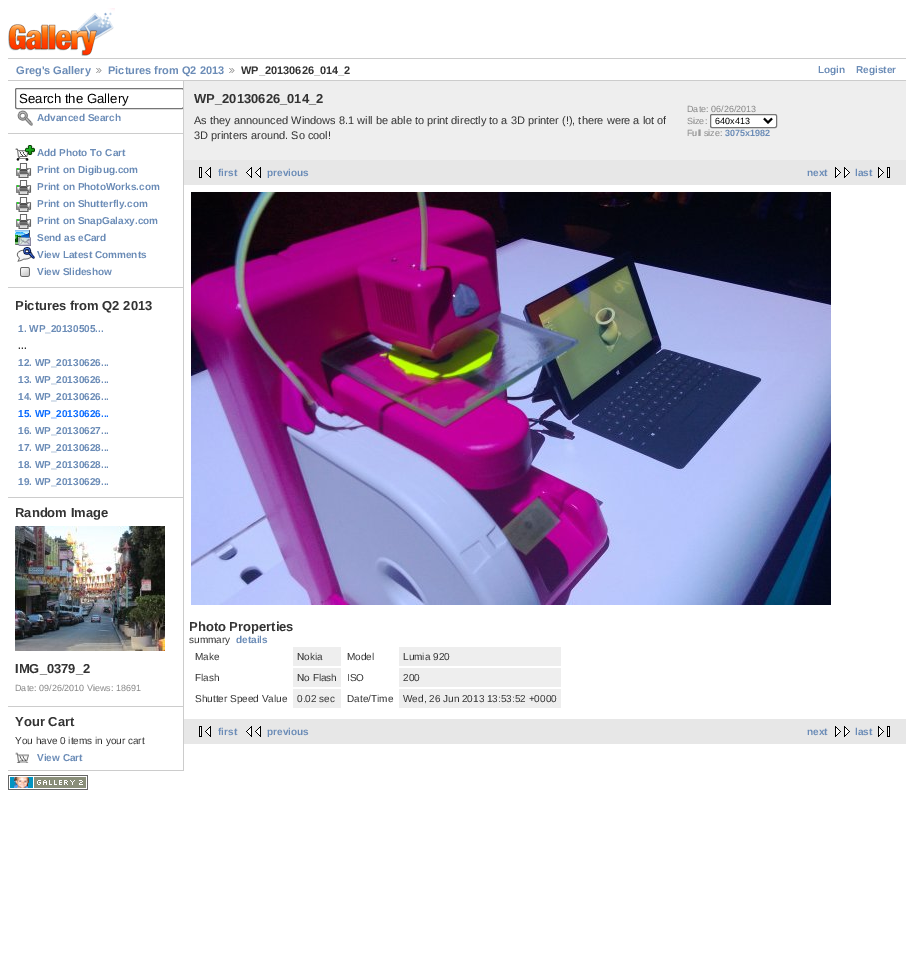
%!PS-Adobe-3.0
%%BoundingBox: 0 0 914 974
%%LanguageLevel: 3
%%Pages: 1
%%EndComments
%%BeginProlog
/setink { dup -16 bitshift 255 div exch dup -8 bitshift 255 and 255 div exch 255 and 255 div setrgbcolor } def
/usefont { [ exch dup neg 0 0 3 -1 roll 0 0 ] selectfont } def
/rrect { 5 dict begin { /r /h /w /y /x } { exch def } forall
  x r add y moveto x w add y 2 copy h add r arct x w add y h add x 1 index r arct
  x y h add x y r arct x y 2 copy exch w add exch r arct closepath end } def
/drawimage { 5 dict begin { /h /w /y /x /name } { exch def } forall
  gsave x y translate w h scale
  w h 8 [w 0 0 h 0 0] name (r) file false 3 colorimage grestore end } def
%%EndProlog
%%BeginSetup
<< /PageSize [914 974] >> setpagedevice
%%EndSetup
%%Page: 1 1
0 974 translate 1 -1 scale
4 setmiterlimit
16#FFFFFF setink
0 0 914 974 rectfill
(img1.raw) 8 8 107 48 drawimage
16#CCCCCC setink
8 58 898 1 rectfill
8 80 898 1 rectfill
/LiberationSans-Bold 11 usefont
16#6B8CB7 setink
16 74 moveto (Greg's Gallery) show
(img2.raw) 96 68 6 5 drawimage
108 74 moveto (Pictures from Q2 2013) show
(img2.raw) 229 68 6 5 drawimage
16#333333 setink
241 74 moveto (WP_20130626_014_2) show
/LiberationSans-Bold 10 usefont
16#6B8CB7 setink
818 73 moveto (Login) show
856 73 moveto (Register) show
16#CCCCCC setink
183 81 1 690 rectfill
8 133 175 1 rectfill
gsave
8 81 175 690 rectclip
16#767676 setink
15.5 88.5 168 20 1.5 rrect stroke
grestore
/LiberationSans-Regular 13.25 usefont
16#000000 setink
19 103 moveto (Search the Gallery) show
(img3.raw) 17 110 16 16 drawimage
/LiberationSans-Bold 10 usefont
16#6B8CB7 setink
37 121 moveto (Advanced Search) show
16#CCCCCC setink
8 287 175 1 rectfill
(img4.raw) 15 145 20 16 drawimage
16#6B8CB7 setink
37 156 moveto (Add Photo To Cart) show
(img5.raw) 16 163 16 15 drawimage
37 173 moveto (Print on Digibug.com) show
(img5.raw) 16 180 16 15 drawimage
37 190 moveto (Print on PhotoWorks.com) show
(img5.raw) 16 197 16 15 drawimage
37 207 moveto (Print on Shutterfly.com) show
(img5.raw) 16 214 16 15 drawimage
37 224 moveto (Print on SnapGalaxy.com) show
(img6.raw) 15 230 16 16 drawimage
37 241 moveto (Send as eCard) show
(img7.raw) 16 247 19 15 drawimage
37 258 moveto (View Latest Comments) show
(img8.raw) 20 267 10 10 drawimage
37 275 moveto (View Slideshow) show
16#CCCCCC setink
8 497 175 1 rectfill
/LiberationSans-Bold 13 usefont
16#333333 setink
15 310 moveto (Pictures from Q2 2013) show
/LiberationSans-Bold 10 usefont
16#6B8CB7 setink
18 332 moveto (1. WP_20130505...) show
16#333333 setink
18 349 moveto (...) show
16#6B8CB7 setink
[
    [(12. WP_20130626...) 18 366]
    [(13. WP_20130626...) 18 383]
    [(14. WP_20130626...) 18 400]
] { aload pop moveto show } forall
16#0B6CFF setink
18 417 moveto (15. WP_20130626...) show
16#6B8CB7 setink
[
    [(16. WP_20130627...) 18 434]
    [(17. WP_20130628...) 18 451]
    [(18. WP_20130628...) 18 468]
    [(19. WP_20130629...) 18 485]
] { aload pop moveto show } forall
16#CCCCCC setink
8 706 175 1 rectfill
/LiberationSans-Bold 13 usefont
16#333333 setink
15 517 moveto (Random Image) show
(img9.raw) 15 526 150 125 drawimage
15 673 moveto (IMG_0379_2) show
/LiberationSans-Regular 9 usefont
16#888888 setink
15 691 moveto (Date: 09/26/2010 Views: 18691) show
16#CCCCCC setink
8 770 175 1 rectfill
/LiberationSans-Bold 13 usefont
16#333333 setink
15 726 moveto (Your Cart) show
/LiberationSans-Regular 10 usefont
15 744 moveto (You have 0 items in your cart) show
(img10.raw) 15 752 14 11 drawimage
/LiberationSans-Bold 10 usefont
16#6B8CB7 setink
37 761 moveto (View Cart) show
16#EEEEEE setink
184 81 722 79 rectfill
/LiberationSans-Bold 13 usefont
16#333333 setink
194 103 moveto (WP_20130626_014_2) show
/LiberationSans-Regular 11 usefont
194 124 moveto (As they announced Windows 8.1 will be able to print directly to a 3D printer \(!\), there were a lot of) show
194 139 moveto (3D printers around. So cool!) show
/LiberationSans-Regular 9 usefont
16#888888 setink
687 112 moveto (Date: 06/26/2013) show
687 124 moveto (Size:) show
16#FFFFFF setink
710.5 114.5 66 13 1.5 rrect gsave fill grestore
16#767676 setink
stroke
16#000000 setink
2 setlinewidth
764 118.5 moveto 768 122.5 lineto 772 118.5 lineto stroke
715 124 moveto (640x413) show
16#888888 setink
687 136 moveto (Full size:) show
/LiberationSans-Bold 9 usefont
16#6B8CB7 setink
725 136 moveto (3075x1982) show
16#E7E7E7 setink
184 160 722 25 rectfill
(img11.raw) 199 167 12 11 drawimage
/LiberationSans-Bold 10 usefont
16#6B8CB7 setink
218 176 moveto (first) show
(img12.raw) 246 167 15 11 drawimage
267 176 moveto (previous) show
807 176 moveto (next) show
(img13.raw) 835 167 15 11 drawimage
855 176 moveto (last) show
(img14.raw) 878 167 12 11 drawimage
(img15.raw) 191 192 640 413 drawimage
/LiberationSans-Bold 13 usefont
16#333333 setink
189 631 moveto (Photo Properties) show
/LiberationSans-Regular 10 usefont
189 643 moveto (summary) show
/LiberationSans-Bold 10 usefont
16#6B8CB7 setink
236 643 moveto (details) show
/LiberationSans-Regular 10 usefont
16#333333 setink
195 660 moveto (Make) show
16#EEEEEE setink
293 647 48 19 rectfill
16#333333 setink
297 660 moveto (Nokia) show
347 660 moveto (Model) show
16#EEEEEE setink
399 647 162 19 rectfill
16#333333 setink
403 660 moveto (Lumia 920) show
195 681 moveto (Flash) show
16#EEEEEE setink
293 668 48 19 rectfill
16#333333 setink
297 681 moveto (No Flash) show
347 681 moveto (ISO) show
16#EEEEEE setink
399 668 162 19 rectfill
16#333333 setink
403 681 moveto (200) show
195 702 moveto (Shutter Speed Value) show
16#EEEEEE setink
293 689 48 19 rectfill
16#333333 setink
297 702 moveto (0.02 sec) show
347 702 moveto (Date/Time) show
16#EEEEEE setink
399 689 162 19 rectfill
16#333333 setink
403 702 moveto (Wed, 26 Jun 2013 13:53:52 +0000) show
16#E7E7E7 setink
184 719 722 25 rectfill
(img11.raw) 199 726 12 11 drawimage
/LiberationSans-Bold 10 usefont
16#6B8CB7 setink
218 735 moveto (first) show
(img12.raw) 246 726 15 11 drawimage
267 735 moveto (previous) show
807 735 moveto (next) show
(img13.raw) 835 726 15 11 drawimage
855 735 moveto (last) show
(img14.raw) 878 726 12 11 drawimage
(img16.raw) 8 775 80 15 drawimage
showpage
%%EOF
